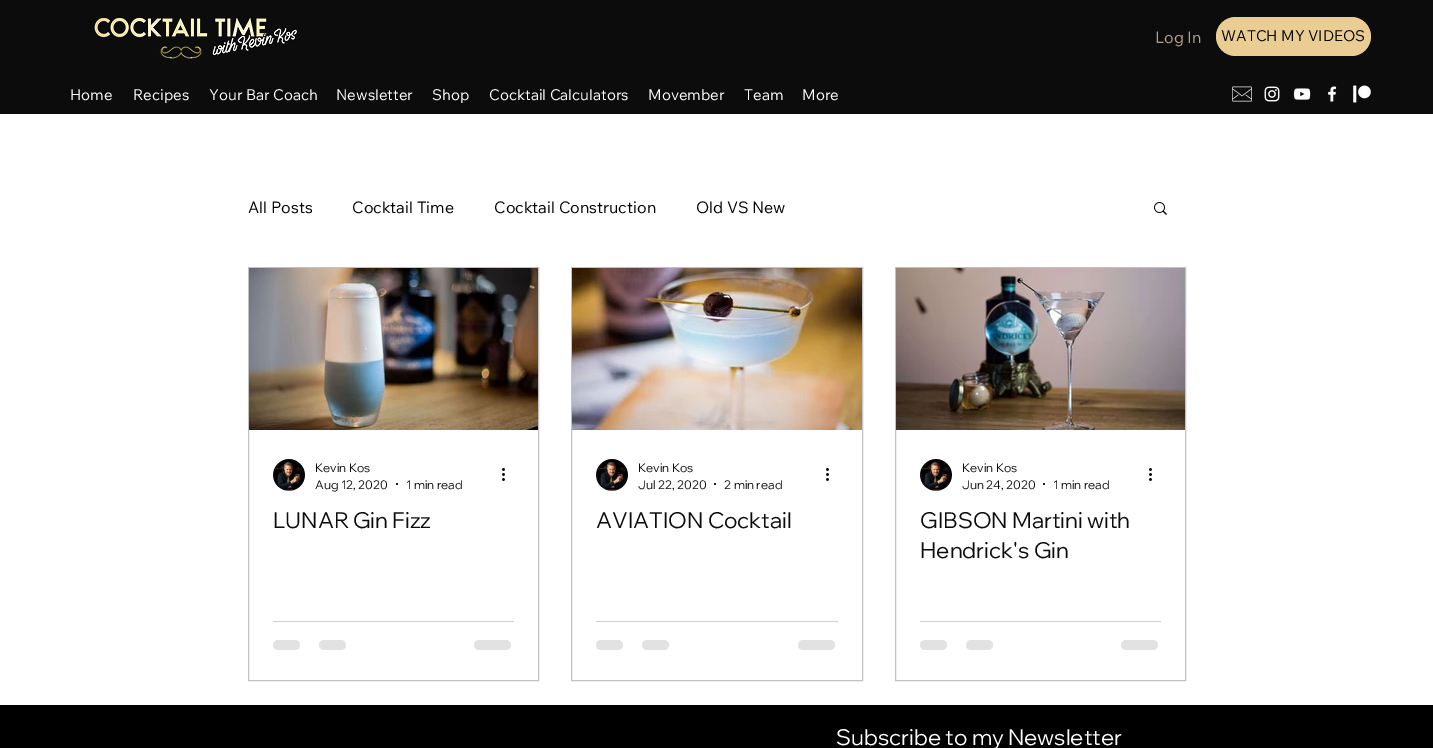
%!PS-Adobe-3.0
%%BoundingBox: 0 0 1433 748
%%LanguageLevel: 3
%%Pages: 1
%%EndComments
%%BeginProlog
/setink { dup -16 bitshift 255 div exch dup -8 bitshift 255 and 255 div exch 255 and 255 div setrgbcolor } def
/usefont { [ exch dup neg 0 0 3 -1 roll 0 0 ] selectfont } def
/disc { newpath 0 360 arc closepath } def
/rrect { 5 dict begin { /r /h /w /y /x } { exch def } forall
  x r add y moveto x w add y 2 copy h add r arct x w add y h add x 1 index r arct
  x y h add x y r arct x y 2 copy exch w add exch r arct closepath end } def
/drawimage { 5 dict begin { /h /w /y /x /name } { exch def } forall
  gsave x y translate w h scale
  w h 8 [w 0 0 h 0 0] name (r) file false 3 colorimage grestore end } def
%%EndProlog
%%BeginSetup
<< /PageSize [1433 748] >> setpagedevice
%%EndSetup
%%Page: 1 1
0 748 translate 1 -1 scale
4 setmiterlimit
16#FFFFFF setink
0 0 1433 748 rectfill
16#0D0C0C setink
0 0 1433 114 rectfill
(img1.raw) 94 17 204 42 drawimage
/WixMadeforText-Regular 16 usefont
16#B4A08C setink
1155 43 moveto (Log In) show
16#EACD93 setink
1216 17 155 39 19.5 rrect fill
/WixMadeforText-Regular 15 usefont
16#000000 setink
1221 41 moveto (WATCH MY VIDEOS) show
16#FFFFFF setink
[
    [(Home) 70 100]
    [(Recipes) 133 100]
    [(Your Bar Coach) 209 100]
    [(Newsletter) 336 100]
    [(Shop) 432 100]
    [(Cocktail Calculators) 489 100]
    [(Movember) 648 100]
    [(Team) 744 100]
    [(More) 802 100]
] { aload pop moveto show } forall
(img2.raw) 1232 86 20 16 drawimage
(img3.raw) 1264 86 16 16 drawimage
(img4.raw) 1293 88 18 12 drawimage
(img5.raw) 1328 86 9 16 drawimage
(img6.raw) 1353 85 18 18 drawimage
/WixMadeforText-Regular 16 usefont
16#000000 setink
[
    [(All Posts) 248 213]
    [(Cocktail Time) 352 213]
    [(Cocktail Construction) 494 213]
    [(Old VS New) 696 213]
] { aload pop moveto show } forall
(img7.raw) 1154 202 13 13 drawimage
16#C3C2C2 setink
248.5 267.5 290 413 rectstroke
(img8.raw) 249 268 289 162 drawimage
(img9.raw) 273 459 32 32 drawimage
/WixMadeforDisplay-Regular 12 usefont
16#0D0C0C setink
315 472 moveto (Kevin Kos) show
315 489 moveto (Aug 12, 2020) show
397 484 1 disc fill
406 489 moveto (1 min read) show
(img10.raw) 502 468 3 13 drawimage
/WixMadeforDisplay-Regular 22 usefont
273 528 moveto (LUNAR Gin Fizz) show
16#CFCECE setink
273 621 241 1 rectfill
16#E2E2E2 setink
273 640 27 10 5 rrect fill
319 640 27 10 5 rrect fill
474 640 37 10 5 rrect fill
16#C3C2C2 setink
571.5 267.5 291 413 rectstroke
(img11.raw) 572 268 290 162 drawimage
(img12.raw) 596 459 32 32 drawimage
/WixMadeforDisplay-Regular 12 usefont
16#0D0C0C setink
638 472 moveto (Kevin Kos) show
638 489 moveto (Jul 22, 2020) show
715 484 1 disc fill
724 489 moveto (2 min read) show
(img10.raw) 826 468 3 13 drawimage
/WixMadeforDisplay-Regular 22 usefont
596 528 moveto (AVIATION Cocktail) show
16#CFCECE setink
596 621 242 1 rectfill
16#E2E2E2 setink
596 640 27 10 5 rrect fill
642 640 27 10 5 rrect fill
798 640 37 10 5 rrect fill
16#C3C2C2 setink
895.5 267.5 290 413 rectstroke
(img13.raw) 896 268 289 162 drawimage
(img12.raw) 920 459 32 32 drawimage
/WixMadeforDisplay-Regular 12 usefont
16#0D0C0C setink
962 472 moveto (Kevin Kos) show
962 489 moveto (Jun 24, 2020) show
1044 484 1 disc fill
1053 489 moveto (1 min read) show
(img10.raw) 1149 468 3 13 drawimage
/WixMadeforDisplay-Regular 22 usefont
920 528 moveto (GIBSON Martini with) show
920 558 moveto (Hendrick's Gin) show
16#CFCECE setink
920 621 241 1 rectfill
16#E2E2E2 setink
920 640 27 10 5 rrect fill
966 640 27 10 5 rrect fill
1121 640 37 10 5 rrect fill
16#000000 setink
0 705 1433 43 rectfill
16#FFFFFF setink
836 745 moveto (Subscribe to my Newsletter) show
showpage
%%EOF
